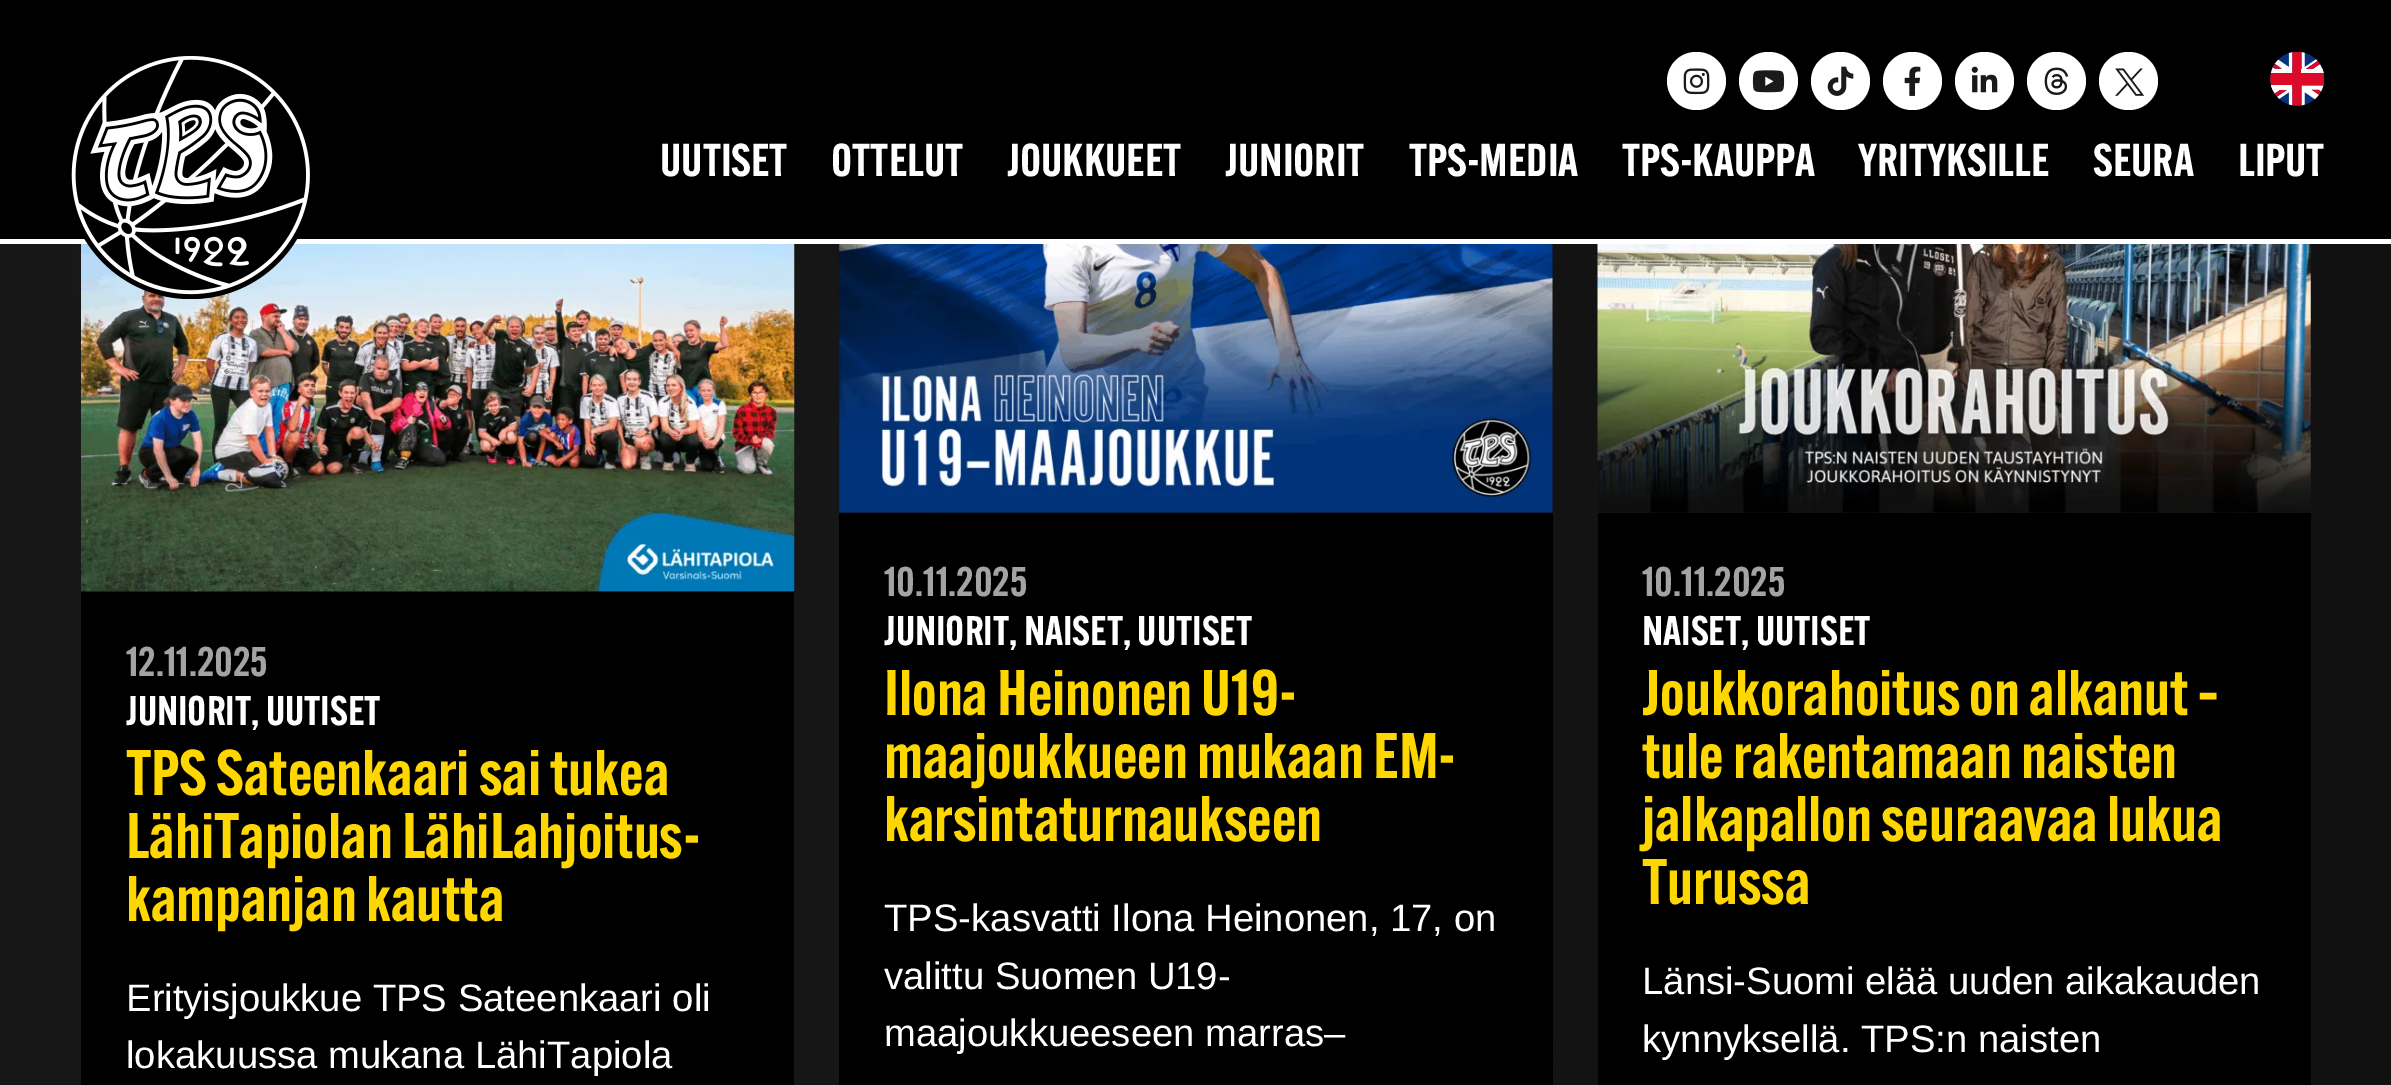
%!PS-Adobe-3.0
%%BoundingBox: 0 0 2391 1085
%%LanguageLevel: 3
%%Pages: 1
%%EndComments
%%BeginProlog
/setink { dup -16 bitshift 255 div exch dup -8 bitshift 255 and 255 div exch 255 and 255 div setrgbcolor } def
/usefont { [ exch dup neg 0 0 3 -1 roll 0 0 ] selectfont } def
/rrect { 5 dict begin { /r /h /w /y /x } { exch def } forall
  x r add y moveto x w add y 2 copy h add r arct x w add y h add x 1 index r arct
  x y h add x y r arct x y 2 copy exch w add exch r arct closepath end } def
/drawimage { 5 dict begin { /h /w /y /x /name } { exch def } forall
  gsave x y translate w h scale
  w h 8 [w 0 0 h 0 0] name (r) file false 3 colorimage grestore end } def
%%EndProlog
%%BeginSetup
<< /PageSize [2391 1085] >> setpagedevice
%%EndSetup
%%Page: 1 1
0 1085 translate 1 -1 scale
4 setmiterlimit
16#FFFFFF setink
0 0 2391 1085 rectfill
gsave 0 244 moveto 2391 244 lineto 2391 1085 lineto 0 1085 lineto closepath clip newpath
<< /ShadingType 2 /ColorSpace /DeviceRGB /Coords [-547 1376 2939 948] /Extend [true true] /Function << /FunctionType 2 /Domain [0 1] /C0 [0.102 0.102 0.102] /C1 [0.063 0.063 0.063] /N 1 >> >> shfill grestore
16#000000 setink
0 0 2391 239 rectfill
(img10.raw) 81 244 714 348 drawimage
(img1.raw) 71 55 239 244 drawimage
16#FFFFFF setink
1667 52 59 58 29 rrect fill
(img2.raw) 1683 68 27 27 drawimage
1739 52 59 58 29 rrect fill
(img3.raw) 1752 70 33 23 drawimage
1811 52 59 58 29 rrect fill
(img4.raw) 1827 66 27 30 drawimage
1883 52 59 58 29 rrect fill
(img5.raw) 1904 66 17 30 drawimage
1955 52 59 58 29 rrect fill
(img6.raw) 1971 66 27 27 drawimage
2027 52 59 58 29 rrect fill
(img7.raw) 2044 67 25 28 drawimage
2099 52 59 58 29 rrect fill
(img8.raw) 2115 68 29 28 drawimage
(img9.raw) 2270 52 54 54 drawimage
/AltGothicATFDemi-SemiBold 45 usefont
[
    [(UUTISET) 660 176]
    [(OTTELUT) 831 176]
    [(JOUKKUEET) 1007 176]
    [(JUNIORIT) 1225 176]
    [(TPS-MEDIA) 1409 176]
    [(TPS-KAUPPA) 1622 176]
    [(YRITYKSILLE) 1858 176]
    [(SEURA) 2093 176]
    [(LIPUT) 2238 176]
] { aload pop moveto show } forall
16#000000 setink
81 592 713 493 rectfill
/AltGothicATFDemi-SemiBold 40.5 usefont
16#A3A3A3 setink
126 676 moveto (12.11.2025) show
16#FFFFFF setink
126 725 moveto (JUNIORIT, UUTISET) show
/AltGothicATFDemi-SemiBold 63 usefont
16#FFD700 setink
[
    [(TPS Sateenkaari sai tukea) 126 795]
    [(LähiTapiolan LähiLahjoitus-) 126 858]
    [(kampanjan kautta) 126 921]
] { aload pop moveto show } forall
/LiberationSans-Regular 38.25 usefont
16#FFFFFF setink
126 1011 moveto (Erityisjoukkue TPS Sateenkaari oli) show
126 1068 moveto (lokakuussa mukana LähiTapiola) show
(img11.raw) 839 244 714 269 drawimage
16#000000 setink
839 513 714 572 rectfill
/AltGothicATFDemi-SemiBold 40.5 usefont
16#A3A3A3 setink
884 596 moveto (10.11.2025) show
16#FFFFFF setink
884 645 moveto (JUNIORIT, NAISET, UUTISET) show
/AltGothicATFDemi-SemiBold 63 usefont
16#FFD700 setink
[
    [(Ilona Heinonen U19-) 884 715]
    [(maajoukkueen mukaan EM-) 884 778]
    [(karsintaturnaukseen) 884 841]
] { aload pop moveto show } forall
/LiberationSans-Regular 38.25 usefont
16#FFFFFF setink
[
    [(TPS-kasvatti Ilona Heinonen, 17, on) 884 931]
    [(valittu Suomen U19-) 884 989]
    [(maajoukkueeseen marras–) 884 1046]
] { aload pop moveto show } forall
(img12.raw) 1597 244 714 269 drawimage
16#000000 setink
1598 513 713 572 rectfill
/AltGothicATFDemi-SemiBold 40.5 usefont
16#A3A3A3 setink
1642 596 moveto (10.11.2025) show
16#FFFFFF setink
1642 645 moveto (NAISET, UUTISET) show
/AltGothicATFDemi-SemiBold 63 usefont
16#FFD700 setink
[
    [(Joukkorahoitus on alkanut –) 1642 715]
    [(tule rakentamaan naisten) 1642 778]
    [(jalkapallon seuraavaa lukua) 1642 841]
    [(Turussa) 1642 904]
] { aload pop moveto show } forall
/LiberationSans-Regular 38.25 usefont
16#FFFFFF setink
1642 994 moveto (Länsi-Suomi elää uuden aikakauden) show
1642 1052 moveto (kynnyksellä. TPS:n naisten) show
showpage
%%EOF
